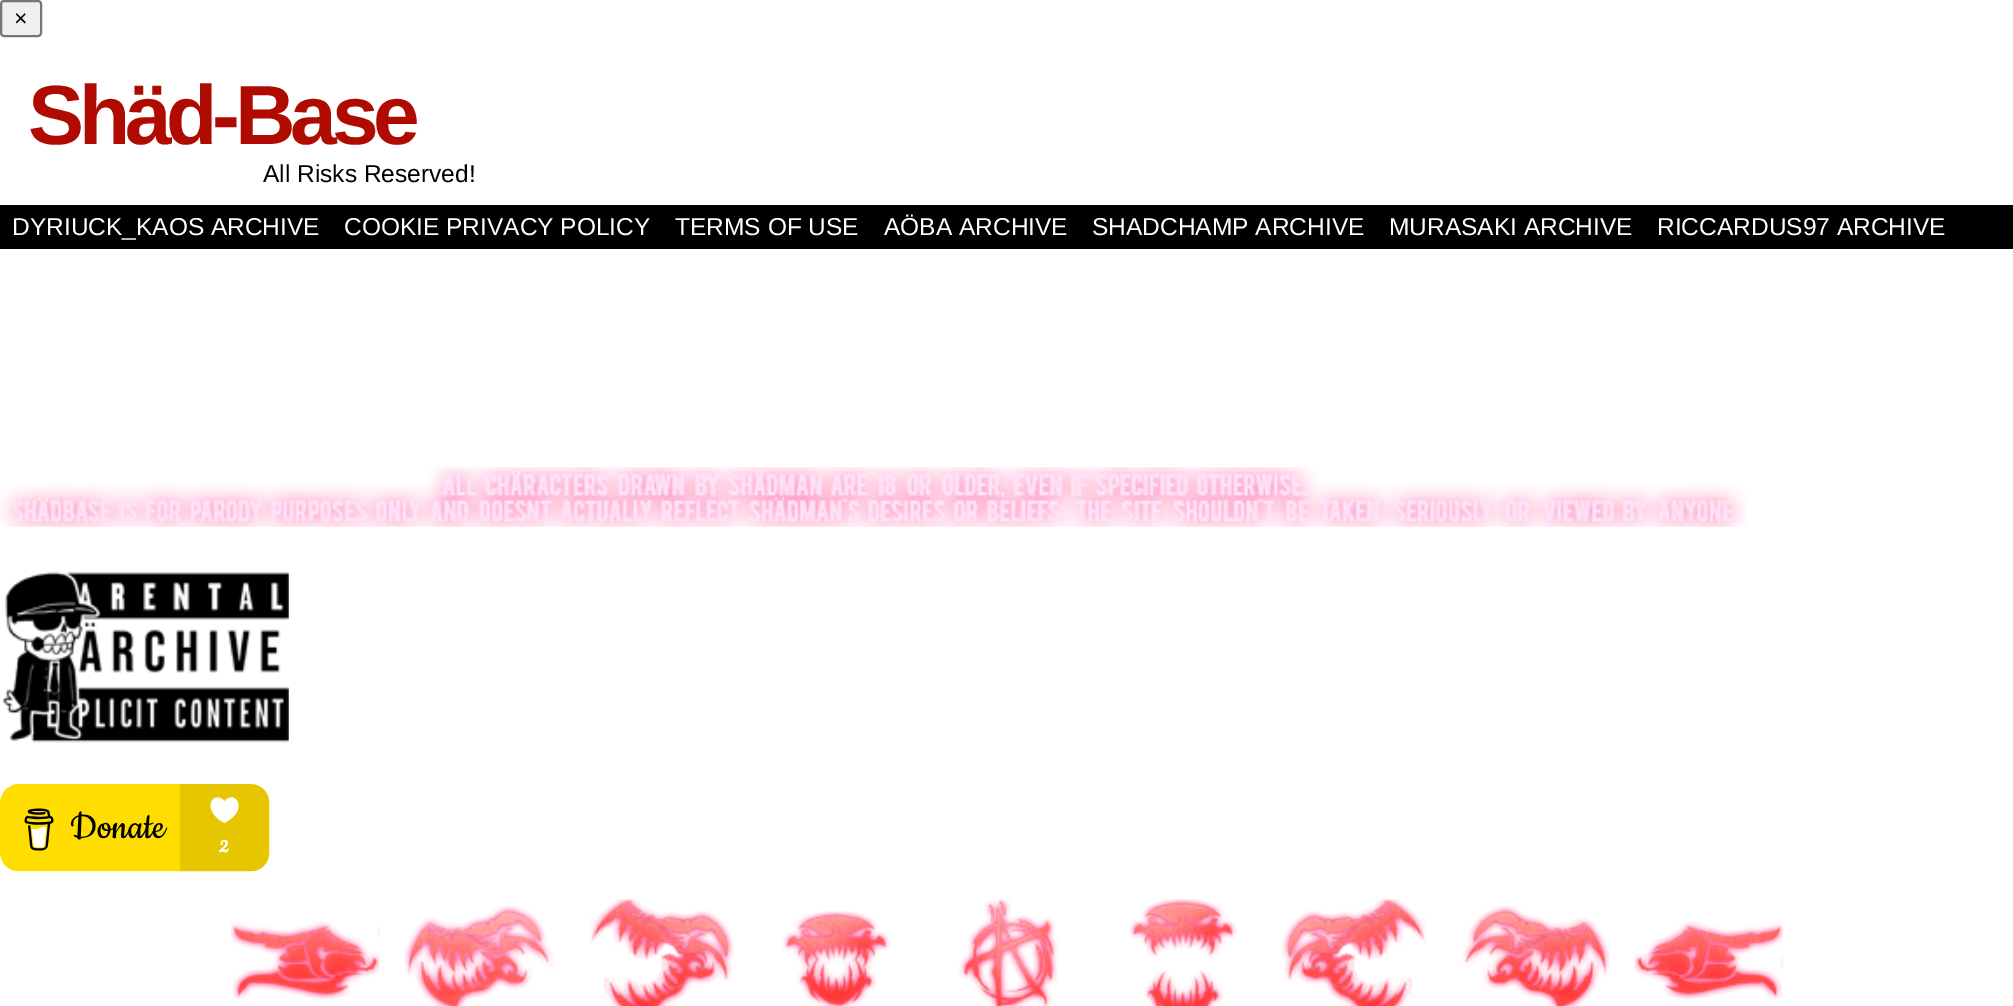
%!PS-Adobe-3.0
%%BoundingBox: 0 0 2013 1006
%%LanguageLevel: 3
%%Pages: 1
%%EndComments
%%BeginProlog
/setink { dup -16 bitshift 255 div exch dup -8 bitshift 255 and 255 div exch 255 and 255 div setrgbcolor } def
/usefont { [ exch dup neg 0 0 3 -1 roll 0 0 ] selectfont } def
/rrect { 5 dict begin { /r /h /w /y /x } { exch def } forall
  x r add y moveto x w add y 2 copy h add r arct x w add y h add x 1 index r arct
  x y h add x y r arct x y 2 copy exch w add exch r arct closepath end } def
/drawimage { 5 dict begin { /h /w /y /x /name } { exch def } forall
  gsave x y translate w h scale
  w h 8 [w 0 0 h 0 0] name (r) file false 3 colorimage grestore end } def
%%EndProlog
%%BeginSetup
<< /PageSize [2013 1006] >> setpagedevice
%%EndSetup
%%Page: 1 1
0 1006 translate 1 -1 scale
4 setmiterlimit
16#FFFFFF setink
0 0 2013 1006 rectfill
16#EFEFEF setink
1 1 40 35 3 rrect gsave fill grestore
16#767676 setink
2 setlinewidth
stroke
/LiberationSans-Regular 23 usefont
16#000000 setink
14 26 moveto (×) show
/LiberationSans-Bold 84 usefont
16#B00B00 setink
28 144 moveto -5.25 0 (Shäd-Base) ashow
/LiberationSans-Regular 24.5 usefont
16#000000 setink
263 182 moveto (All Risks Reserved!) show
0 205 2013 44 rectfill
16#FFFFFF setink
[
    [(DYRIUCK_KAOS ARCHIVE) 12 235]
    [(COOKIE PRIVACY POLICY) 344 235]
    [(TERMS OF USE) 675 235]
    [(AÖBA ARCHIVE) 884 235]
    [(SHADCHAMP ARCHIVE) 1092 235]
    [(MURASAKI ARCHIVE) 1389 235]
    [(RICCARDUS97 ARCHIVE) 1657 235]
] { aload pop moveto show } forall
(img1.raw) 0 467 1747 60 drawimage
(img2.raw) 3 571 286 172 drawimage
(img3.raw) 0 784 270 88 drawimage
(img4.raw) 231 921 149 79 drawimage
(img5.raw) 404 905 149 101 drawimage
(img6.raw) 589 899 146 107 drawimage
(img7.raw) 782 911 109 95 drawimage
(img8.raw) 959 899 100 107 drawimage
(img9.raw) 1129 899 108 107 drawimage
(img10.raw) 1281 899 146 107 drawimage
(img11.raw) 1462 905 148 101 drawimage
(img12.raw) 1634 921 150 79 drawimage
showpage
%%EOF
